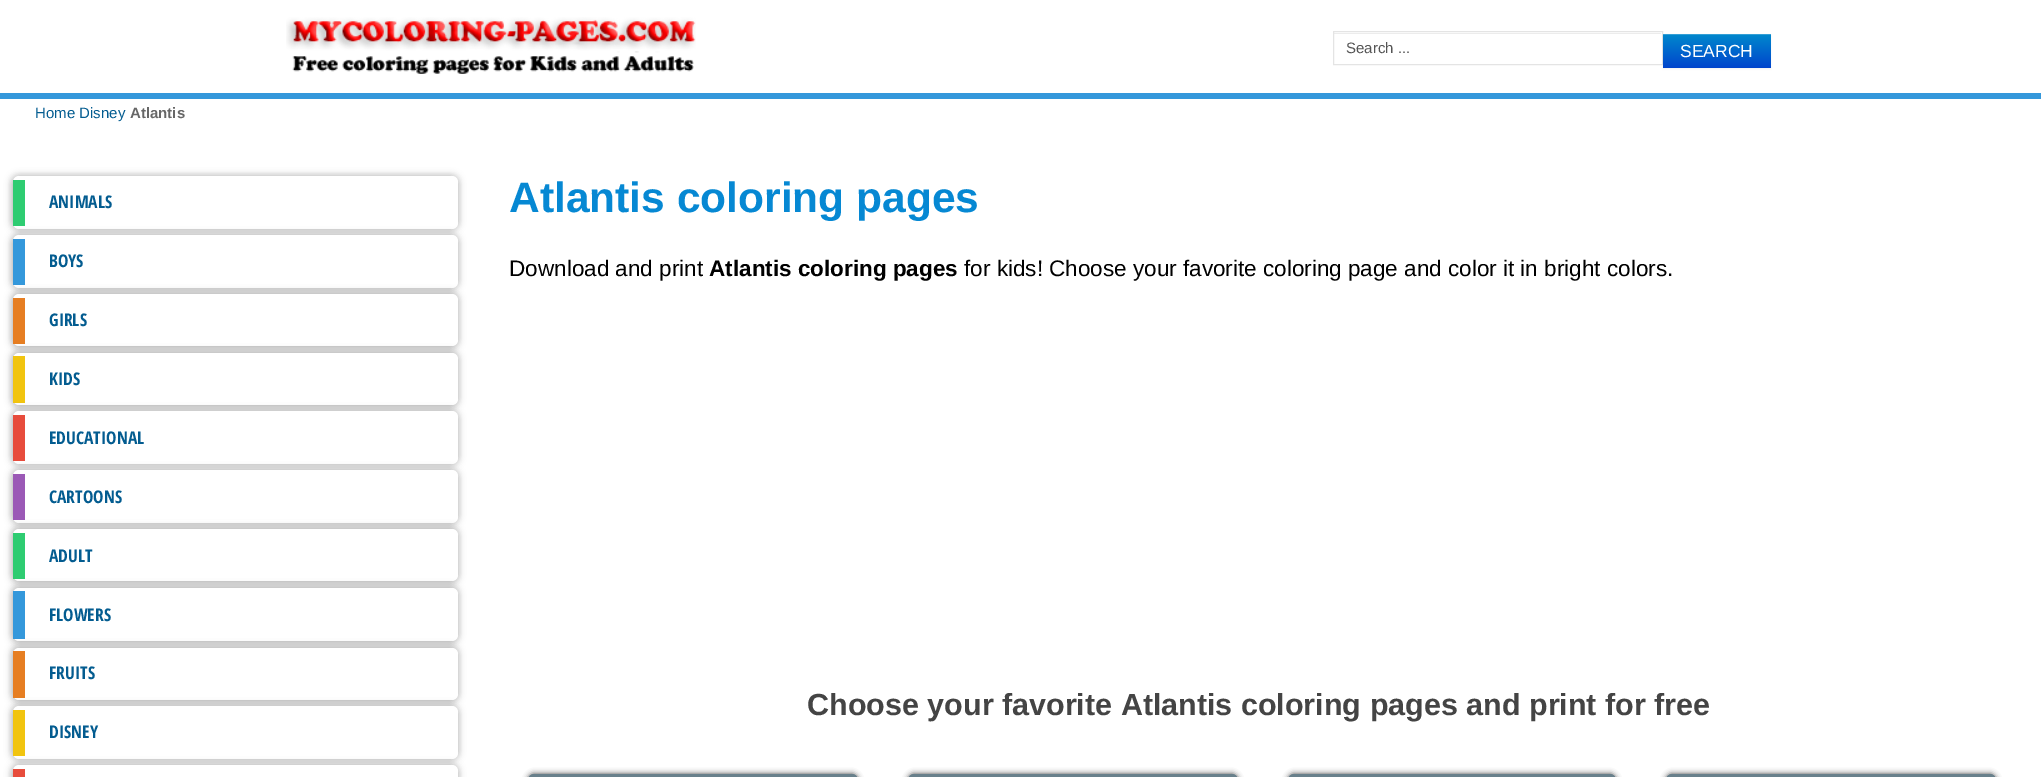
%!PS-Adobe-3.0
%%BoundingBox: 0 0 2041 777
%%LanguageLevel: 3
%%Pages: 1
%%EndComments
%%BeginProlog
/setink { dup -16 bitshift 255 div exch dup -8 bitshift 255 and 255 div exch 255 and 255 div setrgbcolor } def
/usefont { [ exch dup neg 0 0 3 -1 roll 0 0 ] selectfont } def
/setalpha { dup .setfillconstantalpha .setstrokeconstantalpha } def
/rrect { 5 dict begin { /r /h /w /y /x } { exch def } forall
  x r add y moveto x w add y 2 copy h add r arct x w add y h add x 1 index r arct
  x y h add x y r arct x y 2 copy exch w add exch r arct closepath end } def
/softshadow { 12 dict begin { /a /b /q /h /w /y /x } { exch def } forall gsave /was 0 def
  9 -2 -9 { dup b mul 4 div /e exch def 1 sub .425 mul 2.718 exch exp 1 add a .99 .min exch div /now exch def
    1 1 now sub 1 was sub div sub setalpha /was now def
    w h .min e 2 mul add 0 gt { x e sub y e sub w e 2 mul add h e 2 mul add
      q e add b .6 mul add w h .min 2 div e add .min 0 .max rrect fill } if } for grestore end } def
/drawimage { 5 dict begin { /h /w /y /x /name } { exch def } forall
  gsave x y translate w h scale
  w h 8 [w 0 0 h 0 0] name (r) file false 3 colorimage grestore end } def
%%EndProlog
%%BeginSetup
<< /PageSize [2041 777] /PageUsesTransparency true >> setpagedevice
%%EndSetup
%%Page: 1 1
0 .pushpdf14devicefilter
0 777 translate 1 -1 scale
4 setmiterlimit
16#FFFFFF setink
0 0 2041 777 rectfill
16#3498DB setink
0 93 2041 6 rectfill
(img1.raw) 286 17 410 57 drawimage
16#ECECEC setink
1334 33 327 1 rectfill
16#E4E4E4 setink
1333.5 31.5 329 33 rectstroke
/LiberationSans-Regular 15 usefont
16#555555 setink
1346 53 moveto (Search ...) show
16#000000 setink
1663 35 108 34 0 1 0.05 softshadow
gsave 1663 35 moveto 1771 35 lineto 1771 68 lineto 1663 68 lineto closepath clip newpath
<< /ShadingType 2 /ColorSpace /DeviceRGB /Coords [1717 34 1717 68] /Extend [true true] /Function << /FunctionType 2 /Domain [0 1] /C0 [0 0.533 0.8] /C1 [0 0.267 0.8] /N 1 >> >> shfill grestore
16#339FD6 setink
1663 34 108 1 rectfill
/LiberationSans-Regular 17.5 usefont
16#FFFFFF setink
1680 57 moveto (SEARCH) show
/LiberationSans-Regular 15 usefont
16#035C90 setink
35 118 moveto (Home Disney) show
/LiberationSans-Bold 15 usefont
16#676767 setink
130 118 moveto (Atlantis) show
16#000000 setink
10 179 445 52 6 3 0.1 softshadow
15 179 445 52 6 3 0.1 softshadow
10 174 445 52 6 3 0.1 softshadow
15 174 445 52 6 3 0.1 softshadow
16#FFFFFF setink
13 176 445 53 6 rrect fill
16#2ECC71 setink
13 180 12 46 rectfill
/OpenSansCondensed-Bold 17.5 usefont
16#035C90 setink
49 208 moveto (ANIMALS) show
16#000000 setink
10 238 445 52 6 3 0.1 softshadow
15 238 445 52 6 3 0.1 softshadow
10 233 445 52 6 3 0.1 softshadow
15 233 445 52 6 3 0.1 softshadow
16#FFFFFF setink
13 235 445 53 6 rrect fill
16#3498DB setink
13 239 12 46 rectfill
16#035C90 setink
49 267 moveto (BOYS) show
16#000000 setink
10 296 445 53 6 3 0.1 softshadow
15 296 445 53 6 3 0.1 softshadow
10 291 445 53 6 3 0.1 softshadow
15 291 445 53 6 3 0.1 softshadow
16#FFFFFF setink
13 294 445 52 6 rrect fill
16#E67E22 setink
13 298 12 46 rectfill
16#035C90 setink
49 326 moveto (GIRLS) show
16#000000 setink
10 355 445 53 6 3 0.1 softshadow
15 355 445 53 6 3 0.1 softshadow
10 350 445 53 6 3 0.1 softshadow
15 350 445 53 6 3 0.1 softshadow
16#FFFFFF setink
13 353 445 52 6 rrect fill
16#F1C40F setink
13 356 12 47 rectfill
16#035C90 setink
49 385 moveto (KIDS) show
16#000000 setink
10 414 445 52 6 3 0.1 softshadow
15 414 445 52 6 3 0.1 softshadow
10 409 445 52 6 3 0.1 softshadow
15 409 445 52 6 3 0.1 softshadow
16#FFFFFF setink
13 411 445 53 6 rrect fill
16#E74C3C setink
13 415 12 46 rectfill
16#035C90 setink
49 444 moveto (EDUCATIONAL) show
16#000000 setink
10 473 445 52 6 3 0.1 softshadow
15 473 445 52 6 3 0.1 softshadow
10 468 445 52 6 3 0.1 softshadow
15 468 445 52 6 3 0.1 softshadow
16#FFFFFF setink
13 470 445 53 6 rrect fill
16#9B59B6 setink
13 474 12 46 rectfill
16#035C90 setink
49 503 moveto (CARTOONS) show
16#000000 setink
10 531 445 53 6 3 0.1 softshadow
15 531 445 53 6 3 0.1 softshadow
10 526 445 53 6 3 0.1 softshadow
15 526 445 53 6 3 0.1 softshadow
16#FFFFFF setink
13 529 445 52 6 rrect fill
16#2ECC71 setink
13 533 12 46 rectfill
16#035C90 setink
49 562 moveto (ADULT) show
16#000000 setink
10 590 445 54 6 3 0.1 softshadow
15 590 445 54 6 3 0.1 softshadow
10 585 445 54 6 3 0.1 softshadow
15 585 445 54 6 3 0.1 softshadow
16#FFFFFF setink
13 588 445 53 6 rrect fill
16#3498DB setink
13 591 12 48 rectfill
16#035C90 setink
49 621 moveto (FLOWERS) show
16#000000 setink
10 650 445 53 6 3 0.1 softshadow
15 650 445 53 6 3 0.1 softshadow
10 645 445 53 6 3 0.1 softshadow
15 645 445 53 6 3 0.1 softshadow
16#FFFFFF setink
13 648 445 52 6 rrect fill
16#E67E22 setink
13 651 12 47 rectfill
16#035C90 setink
49 679 moveto (FRUITS) show
16#000000 setink
10 709 445 52 6 3 0.1 softshadow
15 709 445 52 6 3 0.1 softshadow
10 704 445 52 6 3 0.1 softshadow
15 704 445 52 6 3 0.1 softshadow
16#FFFFFF setink
13 706 445 53 6 rrect fill
16#F1C40F setink
13 710 12 46 rectfill
16#035C90 setink
49 738 moveto (DISNEY) show
16#000000 setink
10 768 445 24 6 3 0.1 softshadow
15 768 445 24 6 3 0.1 softshadow
10 763 445 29 6 3 0.1 softshadow
15 763 445 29 6 3 0.1 softshadow
16#FFFFFF setink
13 765 445 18 6 rrect fill
16#E74C3C setink
13 769 12 8 rectfill
/LiberationSans-Bold 42.5 usefont
16#0688D3 setink
509 212 moveto (Atlantis coloring pages) show
/LiberationSans-Regular 22.5 usefont
16#000000 setink
509 276 moveto (Download and print) show
/LiberationSans-Bold 22.5 usefont
709 276 moveto (Atlantis coloring pages) show
/LiberationSans-Regular 22.5 usefont
964 276 moveto (for kids! Choose your favorite coloring page and color it in bright colors.) show
/LiberationSans-Bold 30.5 usefont
16#444444 setink
807 715 moveto (Choose your favorite Atlantis coloring pages and print for free) show
16#000000 setink
528 774 330 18 6 3 0.75 softshadow
16#68808B setink
4 setlinewidth
530 776 326 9 4 rrect stroke
16#000000 setink
908 774 330 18 6 3 0.75 softshadow
16#68808B setink
910 776 326 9 4 rrect stroke
16#000000 setink
1288 774 328 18 6 3 0.75 softshadow
16#68808B setink
1290 776 324 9 4 rrect stroke
16#000000 setink
1666 774 330 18 6 3 0.75 softshadow
16#68808B setink
1668 776 326 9 4 rrect stroke
.poppdf14devicefilter showpage
%%EOF
